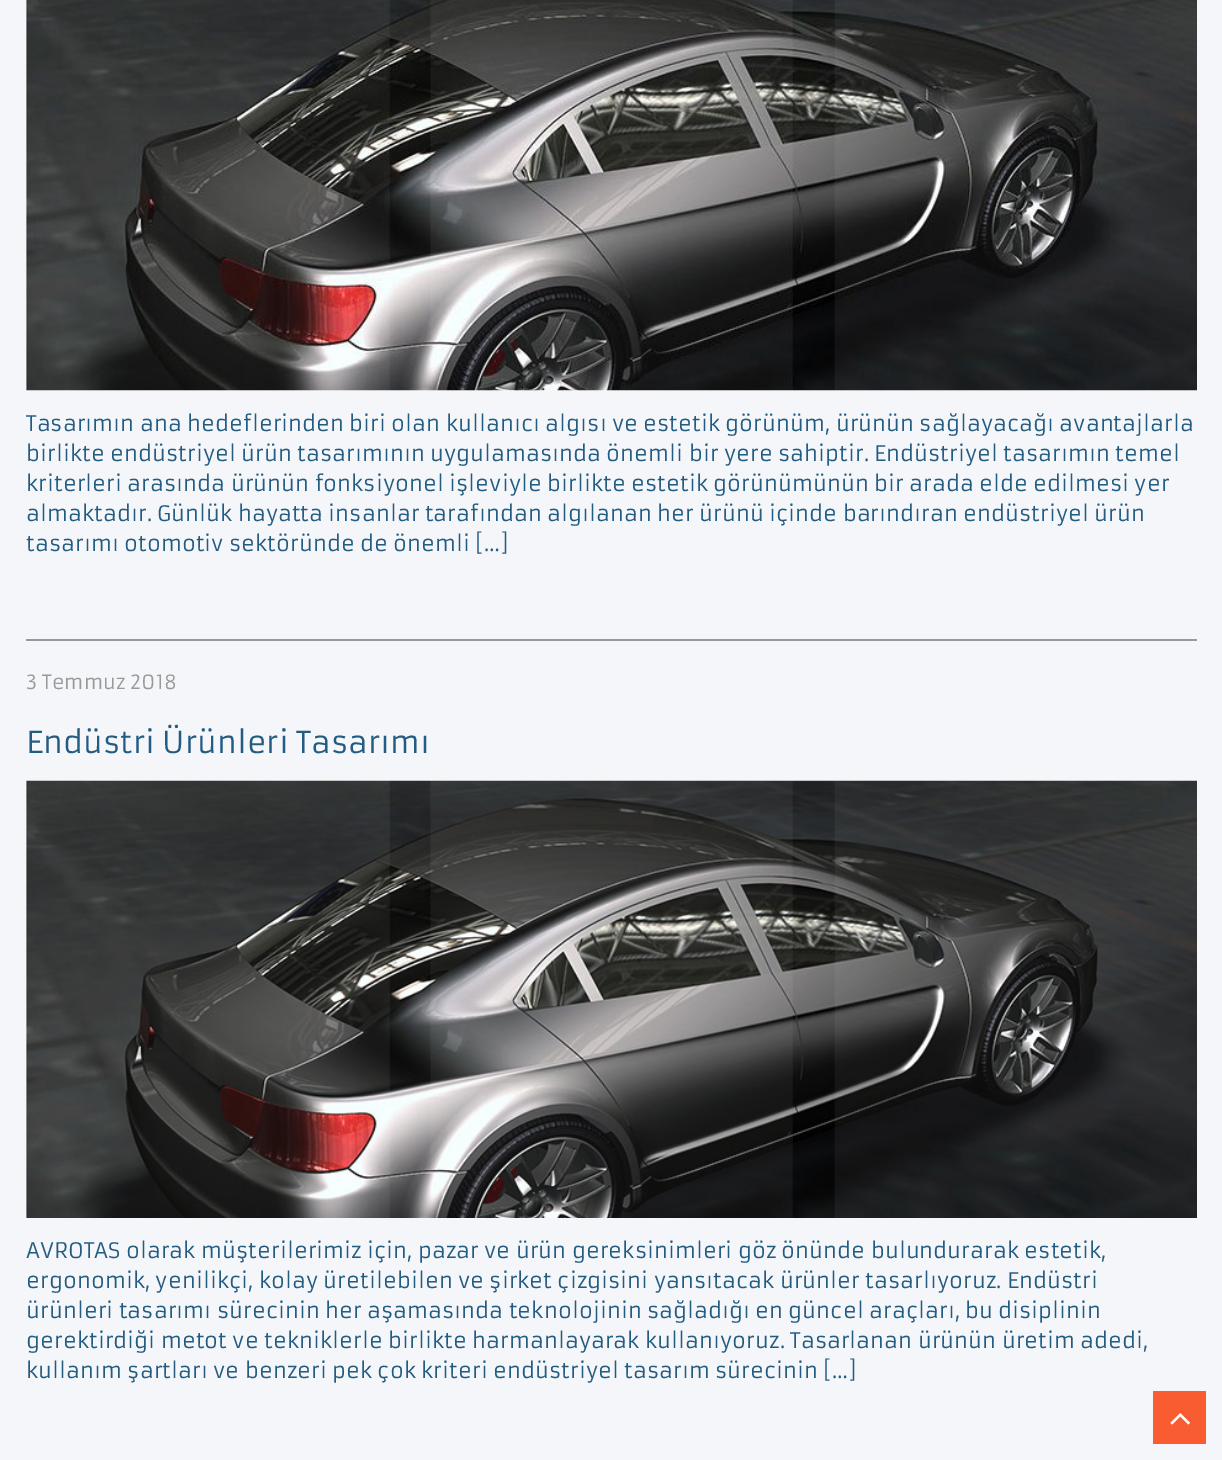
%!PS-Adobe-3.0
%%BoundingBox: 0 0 1222 1460
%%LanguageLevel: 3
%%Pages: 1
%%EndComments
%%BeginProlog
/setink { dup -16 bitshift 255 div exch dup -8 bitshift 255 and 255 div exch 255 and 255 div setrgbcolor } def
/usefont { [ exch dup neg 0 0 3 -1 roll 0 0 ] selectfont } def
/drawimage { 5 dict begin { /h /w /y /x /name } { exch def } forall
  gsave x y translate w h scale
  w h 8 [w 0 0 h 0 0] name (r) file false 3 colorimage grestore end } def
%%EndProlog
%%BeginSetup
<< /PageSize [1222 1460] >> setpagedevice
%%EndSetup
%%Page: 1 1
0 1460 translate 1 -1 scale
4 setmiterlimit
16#F5F6FA setink
0 0 1222 1460 rectfill
16#999999 setink
26 639 1171 2 rectfill
(img1.raw) 26 0 1171 391 drawimage
/Armata-Regular 21 usefont
16#225C81 setink
[
    [(Tasarımın ana hedeflerinden biri olan kullanıcı algısı ve estetik görünüm, ürünün sağlayacağı avantajlarla) 26 431]
    [(birlikte endüstriyel ürün tasarımının uygulamasında önemli bir yere sahiptir. Endüstriyel tasarımın temel) 26 461]
    [(kriterleri arasında ürünün fonksiyonel işleviyle birlikte estetik görünümünün bir arada elde edilmesi yer) 26 491]
    [(almaktadır. Günlük hayatta insanlar tarafından algılanan her ürünü içinde barındıran endüstriyel ürün) 26 521]
    [(tasarımı otomotiv sektöründe de önemli […]) 26 551]
] { aload pop moveto show } forall
/Armata-Regular 19.25 usefont
16#999999 setink
26 689 moveto (3 Temmuz 2018) show
/Armata-Regular 29.75 usefont
16#225C81 setink
26 753 moveto (Endüstri Ürünleri Tasarımı) show
(img2.raw) 26 780 1171 438 drawimage
/Armata-Regular 21 usefont
[
    [(AVROTAS olarak müşterilerimiz için, pazar ve ürün gereksinimleri göz önünde bulundurarak estetik,) 26 1258]
    [(ergonomik, yenilikçi, kolay üretilebilen ve şirket çizgisini yansıtacak ürünler tasarlıyoruz. Endüstri) 26 1288]
    [(ürünleri tasarımı sürecinin her aşamasında teknolojinin sağladığı en güncel araçları, bu disiplinin) 26 1318]
    [(gerektirdiği metot ve tekniklerle birlikte harmanlayarak kullanıyoruz. Tasarlanan ürünün üretim adedi,) 26 1348]
    [(kullanım şartları ve benzeri pek çok kriteri endüstriyel tasarım sürecinin […]) 26 1378]
] { aload pop moveto show } forall
16#F95C30 setink
1153 1391 53 53 rectfill
(img3.raw) 1170 1413 20 12 drawimage
showpage
%%EOF
